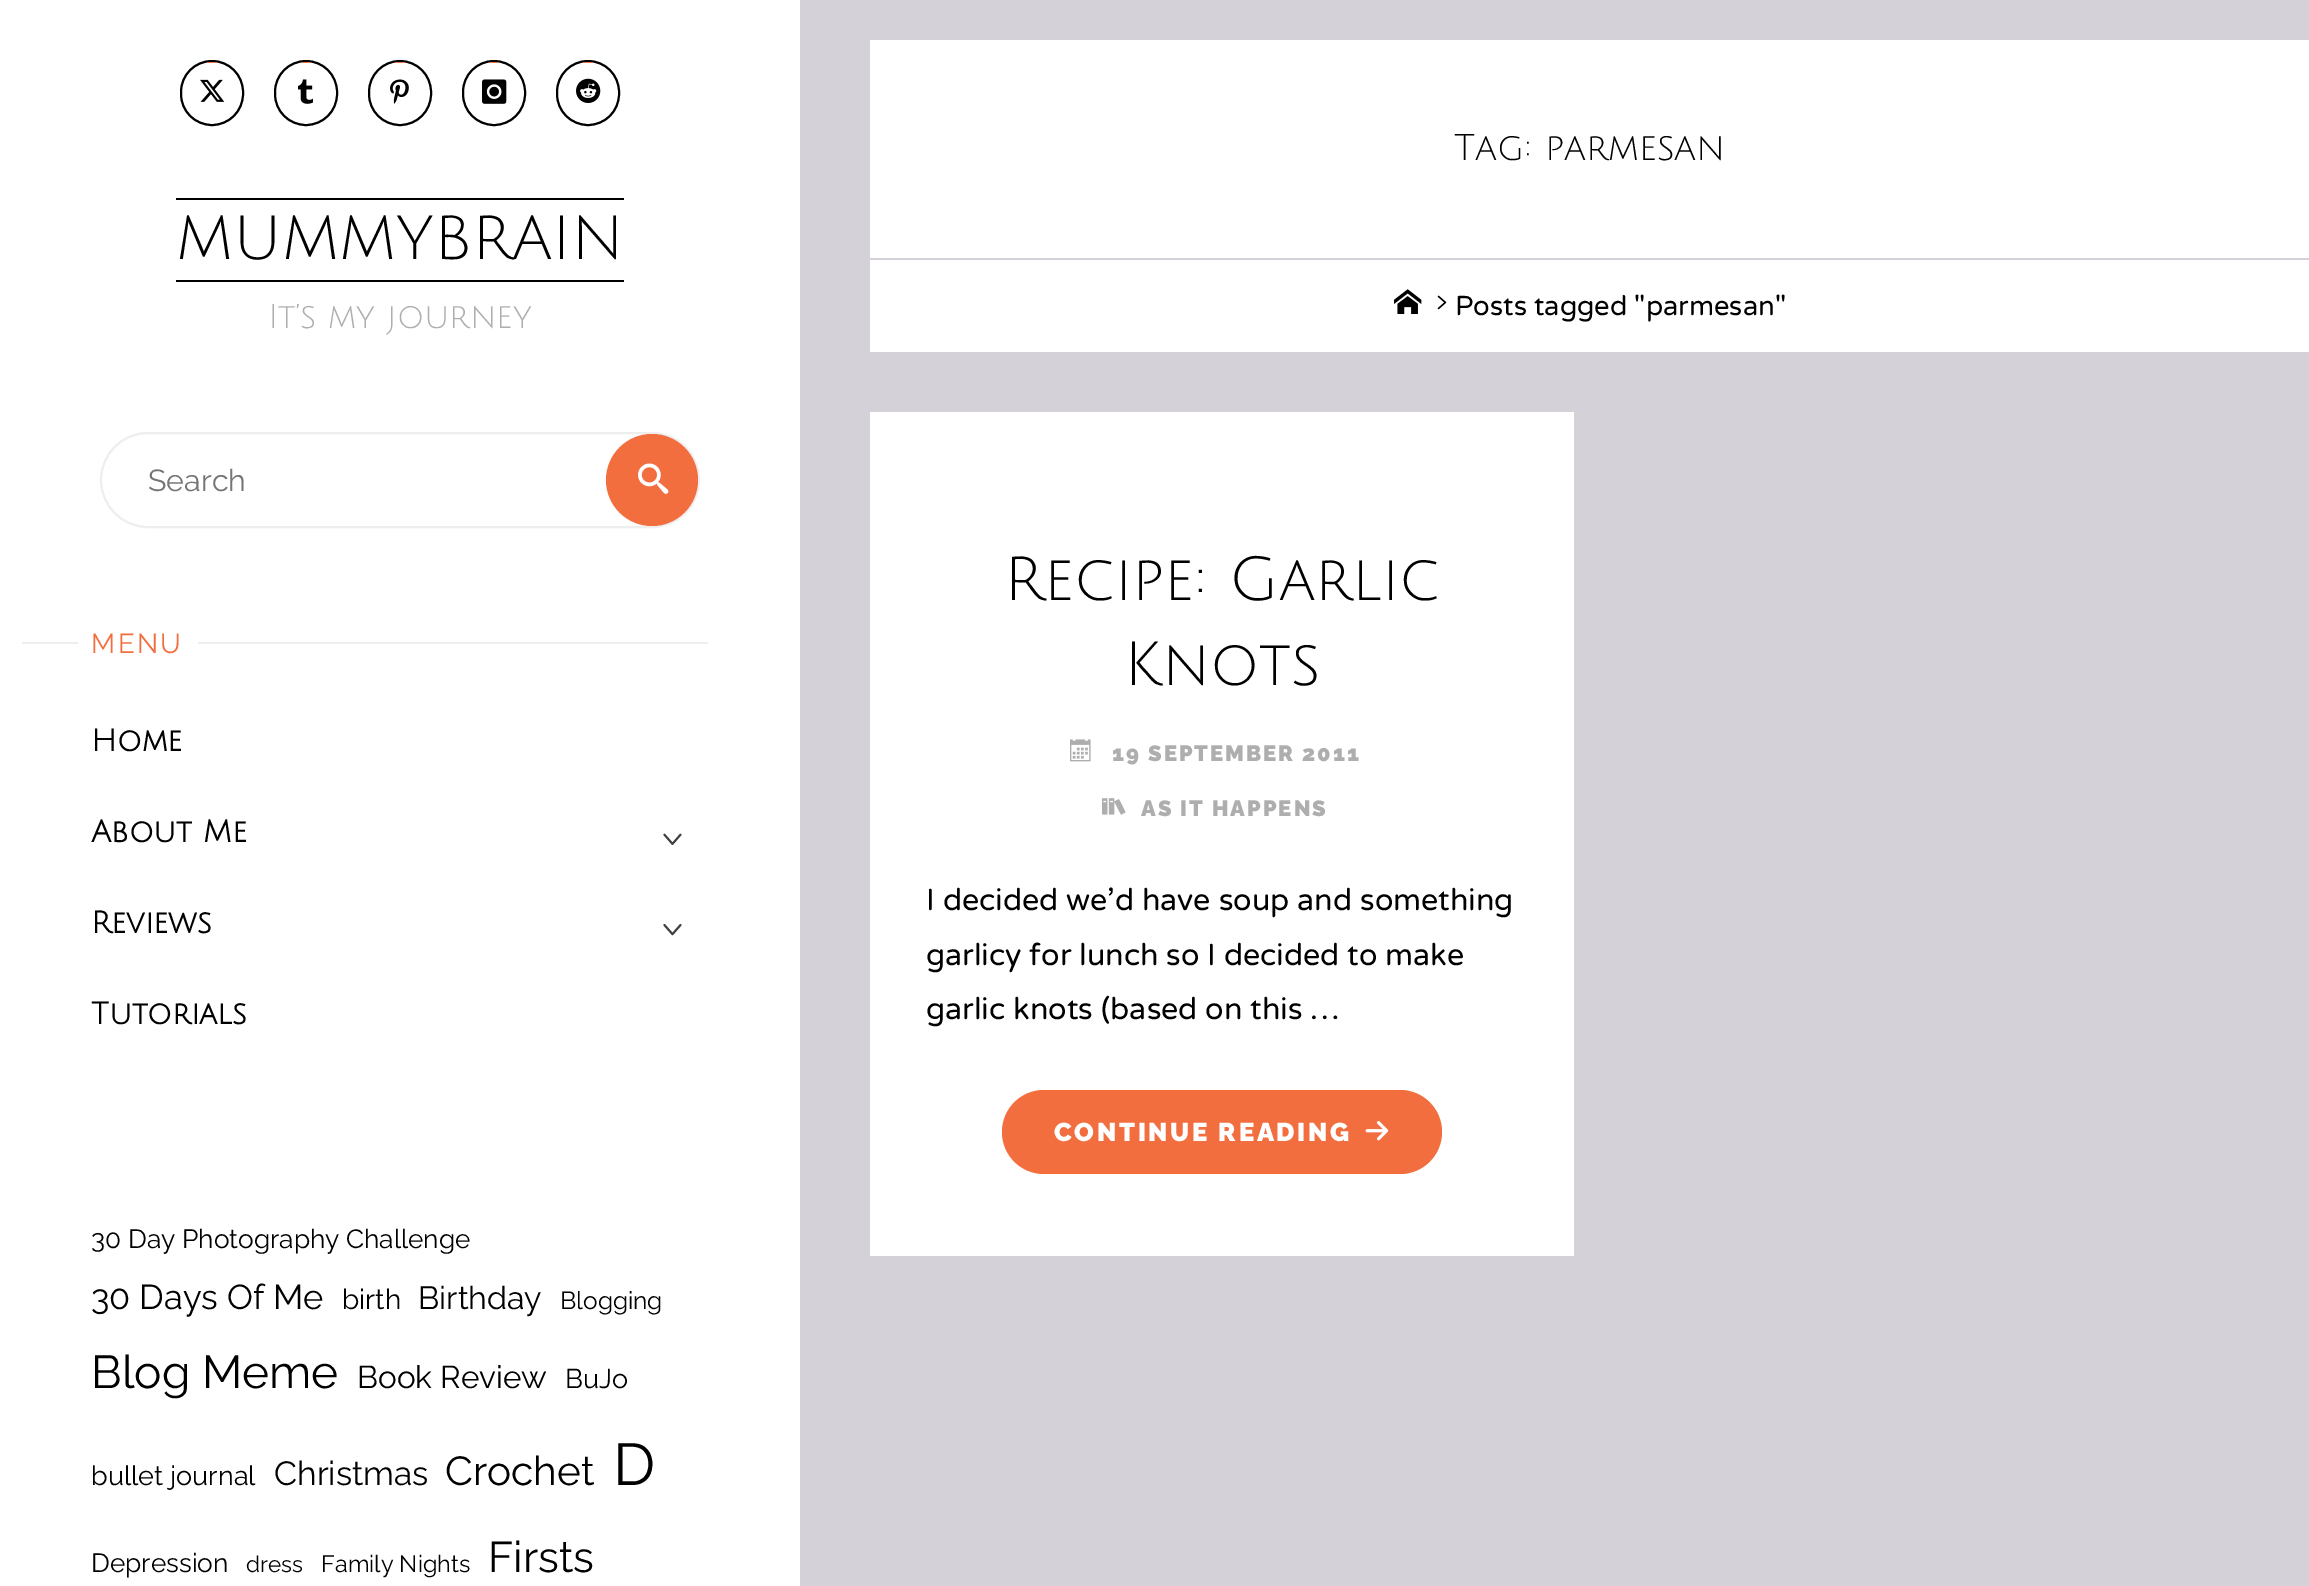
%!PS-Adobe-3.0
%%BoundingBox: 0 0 2309 1586
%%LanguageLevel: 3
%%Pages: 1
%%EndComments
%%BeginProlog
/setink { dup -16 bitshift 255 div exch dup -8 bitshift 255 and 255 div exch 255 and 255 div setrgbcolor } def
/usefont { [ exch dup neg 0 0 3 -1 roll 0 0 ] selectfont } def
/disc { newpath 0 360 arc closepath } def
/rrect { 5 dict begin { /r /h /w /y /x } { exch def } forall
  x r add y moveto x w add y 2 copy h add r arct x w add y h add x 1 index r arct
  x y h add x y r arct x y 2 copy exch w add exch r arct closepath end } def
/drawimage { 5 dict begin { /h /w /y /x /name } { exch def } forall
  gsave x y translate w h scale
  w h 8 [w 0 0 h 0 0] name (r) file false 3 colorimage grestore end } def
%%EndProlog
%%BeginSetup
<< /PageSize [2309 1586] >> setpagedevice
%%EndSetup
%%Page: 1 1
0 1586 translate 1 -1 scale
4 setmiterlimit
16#D4D2D8 setink
0 0 2309 1586 rectfill
16#FFFFFF setink
0 0 800 1586 rectfill
16#000000 setink
2 setlinewidth
181 61 62 64 31 rrect stroke
16#F26E3F setink
212 63 moveto 217.5 62.5 lineto 214 62 210 62 206.5 62.5 curveto closepath fill
(img1.raw) 200 79 25 23 drawimage
16#000000 setink
275 61 62 64 31 rrect stroke
16#F26E3F setink
306 63 moveto 311.5 62.5 lineto 308 62 304 62 300.5 62.5 curveto closepath fill
(img2.raw) 298 79 15 25 drawimage
16#000000 setink
369 61 62 64 31 rrect stroke
16#F26E3F setink
400 63 moveto 405.5 62.5 lineto 402 62 398 62 394.5 62.5 curveto closepath fill
(img3.raw) 390 79 19 25 drawimage
16#000000 setink
463 61 62 64 31 rrect stroke
16#F26E3F setink
494 63 moveto 499.5 62.5 lineto 496 62 492 62 488.5 62.5 curveto closepath fill
(img4.raw) 482 79 25 25 drawimage
16#000000 setink
557 61 62 64 31 rrect stroke
16#F26E3F setink
588 63 moveto 593.5 62.5 lineto 590 62 586 62 582.5 62.5 curveto closepath fill
(img5.raw) 576 78 25 25 drawimage
16#000000 setink
176 198 448 2 rectfill
176 280 448 2 rectfill
/JuliusSansOne-Regular 60.75 usefont
176 259 moveto (MUMMYBRAIN) show
/JuliusSansOne-Regular 33.5 usefont
16#AEAEAE setink
268 328 moveto (It’s my journey) show
16#EEEEEE setink
101 433 598 94 47 rrect stroke
/Raleway-Regular 30.4 usefont
16#757575 setink
148 491 moveto (Search) show
16#F26E3F setink
652 480 46 disc fill
(img6.raw) 638 463 31 31 drawimage
16#EEEEEE setink
22 642 686 2 rectfill
16#FFFFFF setink
78 642 120 2 rectfill
/Raleway-Regular 27.4 usefont
16#F26E3F setink
91 653 moveto 2.5 0 (MENU) ashow
/JuliusSansOne-Bold 30.4 usefont
16#000000 setink
91 751 moveto (Home) show
91 842 moveto (About Me) show
(img7.raw) 663 833 19 12 drawimage
91 933 moveto (Reviews) show
(img8.raw) 663 923 19 13 drawimage
91 1024 moveto (Tutorials) show
/Raleway-Regular 26.3 usefont
91 1248 moveto (30 Day Photography Challenge) show
/Raleway-Regular 34.5 usefont
91 1309 moveto (30 Days Of Me) show
/Raleway-Regular 28 usefont
342 1309 moveto (birth) show
/Raleway-Regular 32 usefont
418 1309 moveto (Birthday) show
/Raleway-Regular 24.5 usefont
560 1309 moveto (Blogging) show
/Raleway-Regular 46 usefont
91 1388 moveto (Blog Meme) show
/Raleway-Regular 31.5 usefont
357 1388 moveto (Book Review) show
/Raleway-Regular 27 usefont
565 1388 moveto (BuJo) show
91 1485 moveto (bullet journal) show
/Raleway-Regular 33.5 usefont
274 1485 moveto (Christmas) show
/Raleway-Regular 40.5 usefont
445 1485 moveto (Crochet) show
/Raleway-Regular 59 usefont
613 1485 moveto (D) show
/Raleway-Regular 26.3 usefont
91 1572 moveto (Depression) show
/Raleway-Regular 22.5 usefont
246 1572 moveto (dress) show
/Raleway-Regular 23.5 usefont
321 1572 moveto (Family Nights) show
/Raleway-Regular 43 usefont
488 1572 moveto (Firsts) show
16#FFFFFF setink
870 40 1439 218 rectfill
/JuliusSansOne-Regular 36.5 usefont
16#000000 setink
1454 160 moveto (Tag: parmesan) show
16#FFFFFF setink
870 260 1439 92 rectfill
(img9.raw) 1394 289 28 25 drawimage
(img10.raw) 1437 295 10 15 drawimage
/VarelaRound-Regular 27.4 usefont
16#000000 setink
1455 315 moveto (Posts tagged "parmesan") show
16#FFFFFF setink
870 412 704 844 rectfill
/JuliusSansOne-Regular 60.75 usefont
16#000000 setink
1004 600 moveto (Recipe: Garlic) show
1124 685 moveto (Knots) show
(img11.raw) 1070 739 21 23 drawimage
/Raleway-Black 22 usefont
16#AEAEAE setink
1112 761 moveto 2 0 (19 SEPTEMBER 2011) ashow
(img12.raw) 1102 798 24 17 drawimage
1141 816 moveto 2 0 (AS IT HAPPENS) ashow
/VarelaRound-Regular 30.4 usefont
16#000000 setink
[
    [(I decided we’d have soup and something) 926 910]
    [(garlicy for lunch so I decided to make) 926 965]
    [(garlic knots \(based on this …) 926 1019]
] { aload pop moveto show } forall
16#F26E3F setink
1002 1090 440 84 42 rrect fill
/Raleway-Black 25.8 usefont
16#FFFFFF setink
1054 1141 moveto 2.6 0 (CONTINUE READING) ashow
(img13.raw) 1365 1121 24 20 drawimage
showpage
%%EOF
